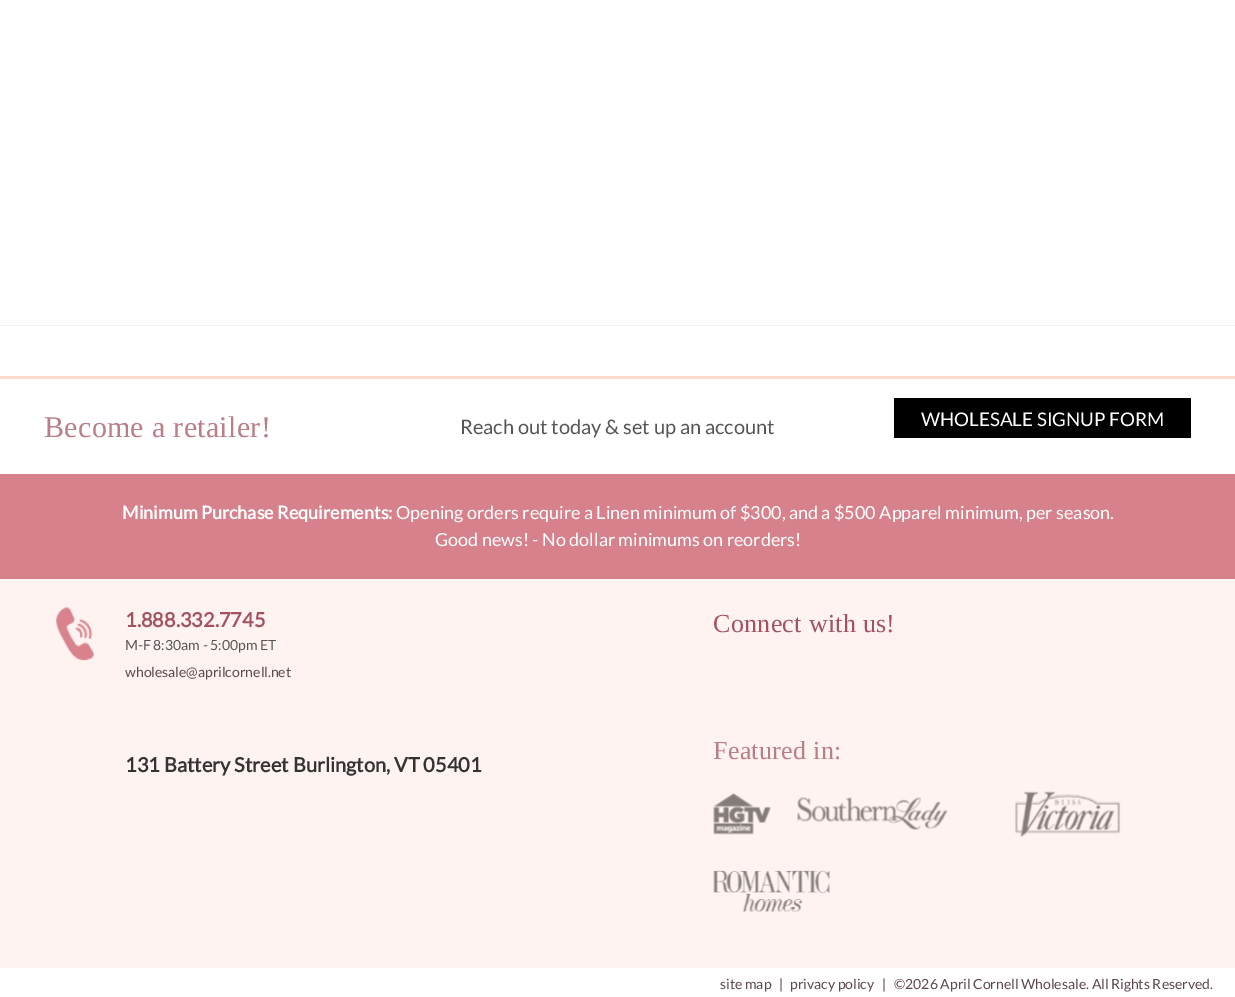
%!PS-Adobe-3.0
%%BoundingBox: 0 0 1235 997
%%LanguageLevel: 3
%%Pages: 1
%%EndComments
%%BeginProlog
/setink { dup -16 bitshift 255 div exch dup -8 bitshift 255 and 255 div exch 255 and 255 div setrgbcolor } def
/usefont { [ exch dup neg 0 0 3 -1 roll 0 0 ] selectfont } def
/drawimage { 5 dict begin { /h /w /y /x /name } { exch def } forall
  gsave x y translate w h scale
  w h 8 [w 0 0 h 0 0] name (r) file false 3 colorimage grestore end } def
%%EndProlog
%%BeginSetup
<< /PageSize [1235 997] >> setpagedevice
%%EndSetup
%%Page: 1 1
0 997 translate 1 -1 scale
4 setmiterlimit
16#FFFFFF setink
0 0 1235 997 rectfill
16#F3F3F3 setink
0 325 1235 1 rectfill
16#FFD8CB setink
0 376 1235 3 rectfill
/LiberationSerif-Regular 30 usefont
16#B97E87 setink
44 437 moveto 0.3 0 (Become a retailer!) ashow
/Lato-Regular 20 usefont
16#555555 setink
460 434 moveto (Reach out today & set up an account) show
16#000000 setink
894 398 297 40 rectfill
/Lato-Regular 18.75 usefont
16#FFFFFF setink
921 426 moveto (WHOLESALE SIGNUP FORM) show
16#D7818C setink
0 474 1235 105 rectfill
/Lato-Bold 18 usefont
16#FFFFFF setink
122 519 moveto (Minimum Purchase Requirements:) show
/Lato-Regular 18 usefont
396 519 moveto (Opening orders require a Linen minimum of $300, and a $500 Apparel minimum, per season.) show
435 546 moveto (Good news! - No dollar minimums on reorders!) show
16#FFF3F1 setink
0 579 1235 389 rectfill
(img1.raw) 56 607 38 54 drawimage
/Lato-Bold 20 usefont
16#A3525F setink
125 627 moveto (1.888.332.7745) show
/Lato-Regular 14 usefont
16#555555 setink
125 650 moveto (M-F 8:30am - 5:00pm ET) show
16#5C484D setink
125 677 moveto (wholesale@aprilcornell.net) show
/Lato-Bold 20 usefont
16#333333 setink
125 772 moveto (131 Battery Street Burlington, VT 05401) show
/LiberationSerif-Regular 26 usefont
16#A3525F setink
713 632 moveto 0.3 0 (Connect with us!) ashow
16#B97E87 setink
713 759 moveto 0.3 0 (Featured in:) ashow
(img2.raw) 713 793 58 42 drawimage
(img3.raw) 797 797 151 33 drawimage
(img4.raw) 1015 791 106 46 drawimage
(img5.raw) 713 870 117 42 drawimage
/Lato-Regular 14 usefont
16#5C484D setink
[
    [(site map) 720 989]
    [(|) 779 989]
    [(privacy policy) 790 989]
    [(|) 882 989]
    [(©2026 April Cornell Wholesale. All Rights Reserved.) 894 989]
] { aload pop moveto show } forall
showpage
%%EOF
